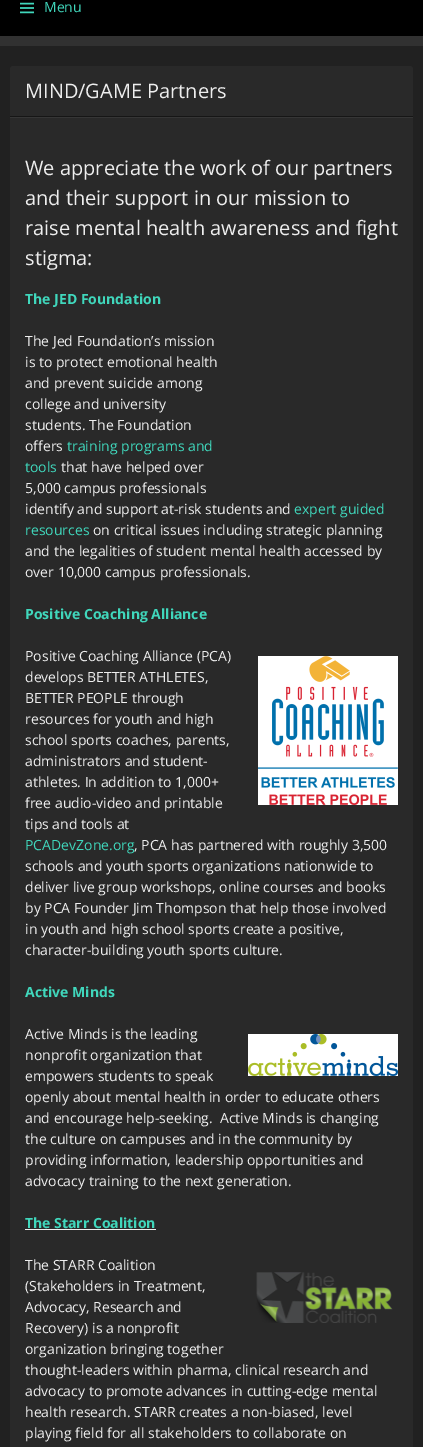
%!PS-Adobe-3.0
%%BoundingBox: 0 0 423 1447
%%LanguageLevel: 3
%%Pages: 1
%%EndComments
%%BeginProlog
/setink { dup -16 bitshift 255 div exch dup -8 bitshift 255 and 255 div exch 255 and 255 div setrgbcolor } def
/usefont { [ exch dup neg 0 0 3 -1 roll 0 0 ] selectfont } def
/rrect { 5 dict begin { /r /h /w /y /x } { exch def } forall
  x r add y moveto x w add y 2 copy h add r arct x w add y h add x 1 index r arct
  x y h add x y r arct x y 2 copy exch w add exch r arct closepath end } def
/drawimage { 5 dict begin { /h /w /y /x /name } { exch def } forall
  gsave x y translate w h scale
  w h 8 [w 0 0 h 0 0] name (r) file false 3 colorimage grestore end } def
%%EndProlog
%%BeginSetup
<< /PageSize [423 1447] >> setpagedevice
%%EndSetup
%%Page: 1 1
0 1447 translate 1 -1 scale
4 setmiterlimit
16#212121 setink
0 0 423 1447 rectfill
16#313131 setink
0 36 423 10 rectfill
16#000000 setink
0 0 423 36 rectfill
(img1.raw) 20 2 14 12 drawimage
/OpenSans-Regular 14 usefont
16#40D7BC setink
44 12 moveto (Menu) show
16#292929 setink
10 66 403 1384 3 rrect fill
16#161616 setink
10 116 403 1 rectfill
/OpenSans-Regular 20 usefont
16#EEEEEE setink
25 98 moveto (MIND/GAME Partners) show
16#363636 setink
10 117 403 1 rectfill
16#EEEEEE setink
[
    [(We appreciate the work of our partners) 25 175]
    [(and their support in our mission to) 25 205]
    [(raise mental health awareness and fight) 25 235]
    [(stigma:) 25 265]
] { aload pop moveto show } forall
/OpenSans-Bold 14 usefont
16#40D7BC setink
25 304 moveto (The JED Foundation) show
/OpenSans-Regular 14 usefont
16#EEEEEE setink
[
    [(The Jed Foundation’s mission) 25 346]
    [(is to protect emotional health) 25 367]
    [(and prevent suicide among) 25 388]
    [(college and university) 25 409]
    [(students. The Foundation) 25 430]
    [(offers) 25 451]
] { aload pop moveto show } forall
16#40D7BC setink
67 451 moveto (training programs and) show
25 472 moveto (tools) show
16#EEEEEE setink
[
    [(that have helped over) 61 472]
    [(5,000 campus professionals) 25 493]
    [(identify and support at-risk students and) 25 514]
] { aload pop moveto show } forall
16#40D7BC setink
294 514 moveto (expert guided) show
25 535 moveto (resources) show
16#EEEEEE setink
[
    [(on critical issues including strategic planning) 93 535]
    [(and the legalities of student mental health accessed by) 25 556]
    [(over 10,000 campus professionals.) 25 577]
] { aload pop moveto show } forall
/OpenSans-Bold 14 usefont
16#40D7BC setink
25 619 moveto (Positive Coaching Alliance) show
/OpenSans-Regular 14 usefont
16#EEEEEE setink
25 661 moveto (Positive Coaching Alliance \(PCA\)) show
(img2.raw) 258 656 140 149 drawimage
[
    [(develops BETTER ATHLETES,) 25 682]
    [(BETTER PEOPLE through) 25 703]
    [(resources for youth and high) 25 724]
    [(school sports coaches, parents,) 25 745]
    [(administrators and student-) 25 766]
    [(athletes. In addition to 1,000+) 25 787]
    [(free audio-video and printable) 25 808]
    [(tips and tools at) 25 829]
] { aload pop moveto show } forall
16#40D7BC setink
25 850 moveto (PCADevZone.org) show
16#EEEEEE setink
[
    [(, PCA has partnered with roughly 3,500) 134 850]
    [(schools and youth sports organizations nationwide to) 25 871]
    [(deliver live group workshops, online courses and books) 25 892]
    [(by PCA Founder Jim Thompson that help those involved) 25 913]
    [(in youth and high school sports create a positive,) 25 934]
    [(character-building youth sports culture.) 25 955]
] { aload pop moveto show } forall
/OpenSans-Bold 14 usefont
16#40D7BC setink
25 997 moveto (Active Minds) show
/OpenSans-Regular 14 usefont
16#EEEEEE setink
25 1039 moveto (Active Minds is the leading) show
(img3.raw) 248 1034 150 42 drawimage
[
    [(nonprofit organization that) 25 1060]
    [(empowers students to speak) 25 1081]
    [(openly about mental health in order to educate others) 25 1102]
    [(and encourage help-seeking.  Active Minds is changing) 25 1123]
    [(the culture on campuses and in the community by) 25 1144]
    [(providing information, leadership opportunities and) 25 1165]
    [(advocacy training to the next generation.) 25 1186]
] { aload pop moveto show } forall
/OpenSans-Bold 14 usefont
16#40D7BC setink
25 1228 moveto (The Starr Coalition) show
16#EEEEEE setink
25 1229 131 1 rectfill
/OpenSans-Regular 14 usefont
[
    [(The STARR Coalition) 25 1270]
    [(\(Stakeholders in Treatment,) 25 1291]
    [(Advocacy, Research and) 25 1312]
    [(Recovery\) is a nonprofit) 25 1333]
    [(organization bringing together) 25 1354]
    [(thought-leaders within pharma, clinical research and) 25 1375]
    [(advocacy to promote advances in cutting-edge mental) 25 1396]
    [(health research. STARR creates a non-biased, level) 25 1417]
    [(playing field for all stakeholders to collaborate on) 25 1438]
] { aload pop moveto show } forall
(img4.raw) 256 1272 137 51 drawimage
showpage
%%EOF
